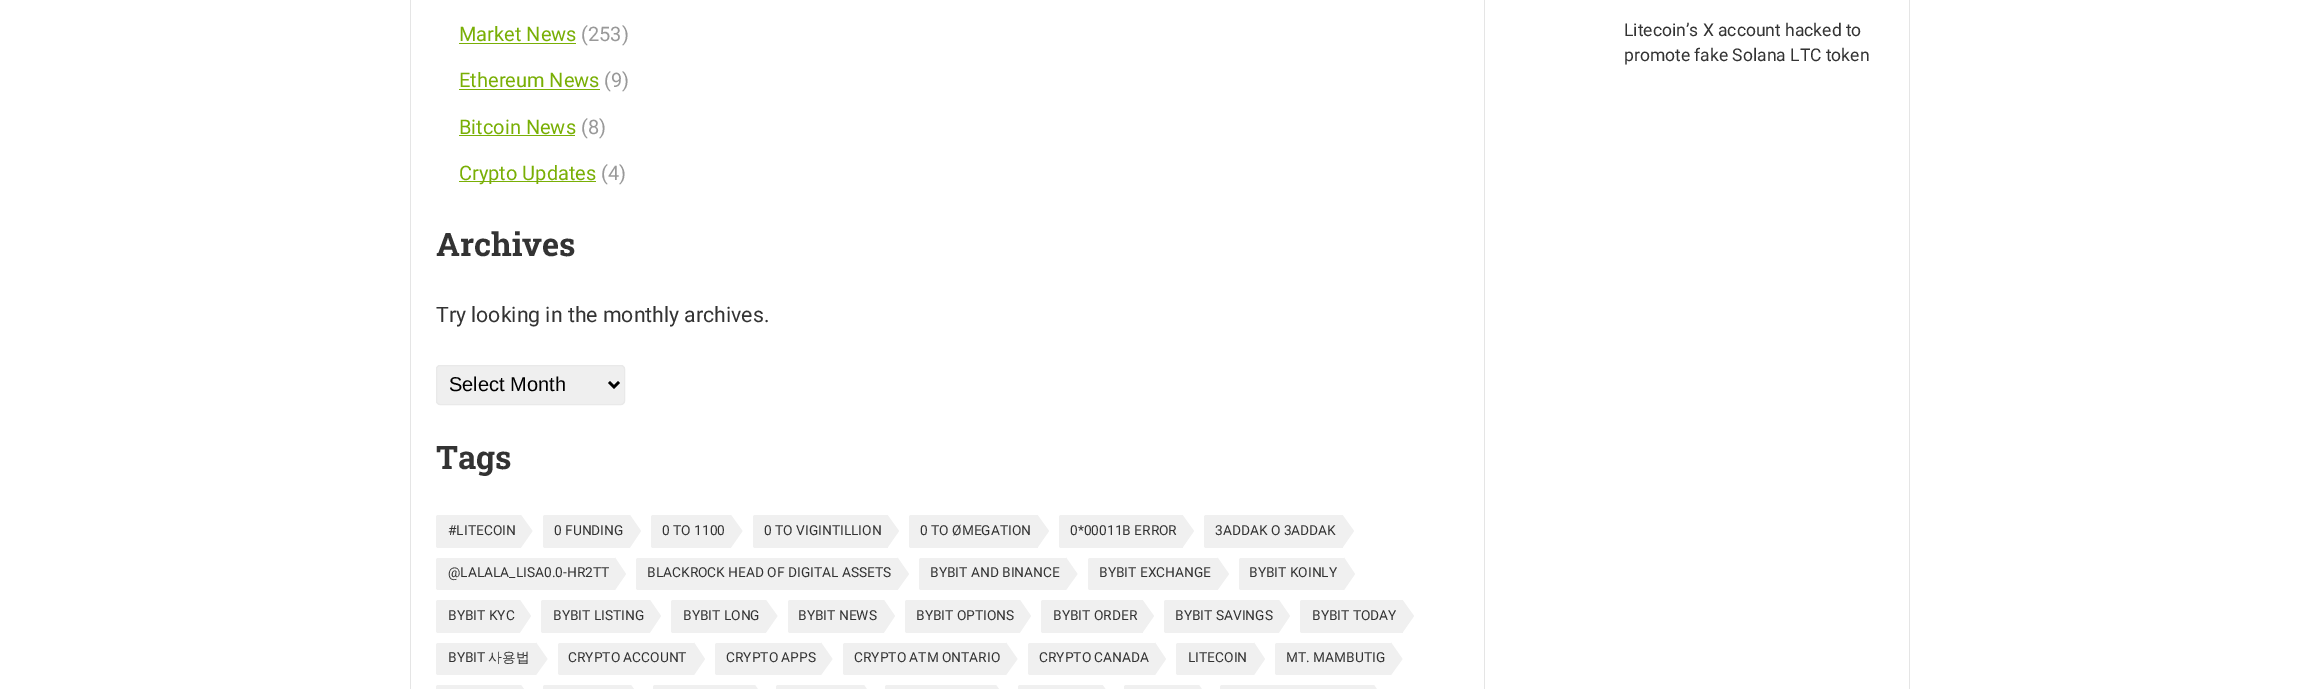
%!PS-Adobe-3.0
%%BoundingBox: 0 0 2320 689
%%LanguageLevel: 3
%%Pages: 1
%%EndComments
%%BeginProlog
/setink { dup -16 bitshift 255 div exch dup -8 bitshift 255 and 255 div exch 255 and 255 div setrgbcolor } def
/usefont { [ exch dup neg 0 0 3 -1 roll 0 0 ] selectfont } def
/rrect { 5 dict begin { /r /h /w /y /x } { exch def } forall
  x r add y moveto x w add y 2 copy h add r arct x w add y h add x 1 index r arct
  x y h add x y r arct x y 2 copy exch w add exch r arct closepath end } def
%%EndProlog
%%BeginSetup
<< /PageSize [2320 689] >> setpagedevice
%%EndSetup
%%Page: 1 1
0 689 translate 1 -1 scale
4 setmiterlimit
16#FFFFFF setink
0 0 2320 689 rectfill
[
    [1909 0 1 689 16#E5E5E5]
    [410 0 1 689 16#E5E5E5]
    [1484 0 1 689 16#E5E5E5]
] { aload pop setink rectfill } forall
/Roboto-Regular 20 usefont
16#79AF05 setink
459 41 moveto (Market News) show
459 43 117 1 rectfill
16#999999 setink
581 41 moveto (\(253\)) show
16#79AF05 setink
459 87 moveto (Ethereum News) show
459 89 141 1 rectfill
16#999999 setink
604 87 moveto (\(9\)) show
16#79AF05 setink
459 134 moveto (Bitcoin News) show
459 135 116 1 rectfill
16#999999 setink
581 134 moveto (\(8\)) show
16#79AF05 setink
459 181 137 1 rectfill
459 180 moveto (Crypto Updates) show
16#999999 setink
601 180 moveto (\(4\)) show
/RobotoSlab-Bold 32.5 usefont
16#333333 setink
436 256 moveto (Archives) show
/Roboto-Regular 21.25 usefont
436 322 moveto (Try looking in the monthly archives.) show
16#EFEFEF setink
436.5 365.5 188 39 3.5 rrect gsave fill grestore
16#E9E9E9 setink
stroke
16#000000 setink
2.5 setlinewidth
609 382 moveto 614 387 lineto 619 382 lineto stroke
/LiberationSans-Regular 20 usefont
449 391 moveto (Select Month) show
/RobotoSlab-Bold 32.5 usefont
16#333333 setink
436 469 moveto (Tags) show
16#F0F0F0 setink
438.5 515 moveto 521 515 lineto 521 548 lineto 438.5 548 lineto 437 548 436 547 436 545.5 curveto 436 517.5 lineto 436 516 437 515 438.5 515 curveto closepath fill
/Roboto-Regular 13.75 usefont
16#333333 setink
448 535 moveto (#LITECOIN) show
16#F0F0F0 setink
521 547.5 moveto 521 515 lineto 532.5 531 lineto closepath fill
545.5 515 moveto 630 515 lineto 630 548 lineto 545.5 548 lineto 544 548 543 547 543 545.5 curveto 543 517.5 lineto 543 516 544 515 545.5 515 curveto closepath fill
16#333333 setink
554 535 moveto (0 FUNDING) show
16#F0F0F0 setink
630 547.5 moveto 630 515 lineto 641 531 lineto closepath fill
653.5 515 moveto 731 515 lineto 731 548 lineto 653.5 548 lineto 652 548 651 547 651 545.5 curveto 651 517.5 lineto 651 516 652 515 653.5 515 curveto closepath fill
16#333333 setink
662 535 moveto (0 TO 1100) show
16#F0F0F0 setink
731 547.5 moveto 731 515 lineto 742.5 531 lineto closepath fill
755.5 515 moveto 888 515 lineto 888 548 lineto 755.5 548 lineto 754 548 753 547 753 545.5 curveto 753 517.5 lineto 753 516 754 515 755.5 515 curveto closepath fill
16#333333 setink
764 535 moveto (0 TO VIGINTILLION) show
16#F0F0F0 setink
887.5 547.5 moveto 887.5 515 lineto 899 531 lineto closepath fill
911.5 515 moveto 1038 515 lineto 1038 548 lineto 911.5 548 lineto 910 548 909 547 909 545.5 curveto 909 517.5 lineto 909 516 910 515 911.5 515 curveto closepath fill
16#333333 setink
920 535 moveto (0 TO ØMEGATION) show
16#F0F0F0 setink
1037.5 547.5 moveto 1037.5 515 lineto 1049 531 lineto closepath fill
1061.5 515 moveto 1183 515 lineto 1183 548 lineto 1061.5 548 lineto 1060 548 1059 547 1059 545.5 curveto 1059 517.5 lineto 1059 516 1060 515 1061.5 515 curveto closepath fill
16#333333 setink
1070 535 moveto (0*00011B ERROR) show
16#F0F0F0 setink
1182.5 547.5 moveto 1182.5 515 lineto 1194 531 lineto closepath fill
1206.5 515 moveto 1343 515 lineto 1343 548 lineto 1206.5 548 lineto 1205 548 1204 547 1204 545.5 curveto 1204 517.5 lineto 1204 516 1205 515 1206.5 515 curveto closepath fill
16#333333 setink
1215 535 moveto (3ADDAK O 3ADDAK) show
16#F0F0F0 setink
1342.5 547.5 moveto 1342.5 515 lineto 1354 531 lineto closepath fill
438.5 558 moveto 615 558 lineto 615 590 lineto 438.5 590 lineto 437 590 436 589 436 587.5 curveto 436 560.5 lineto 436 559 437 558 438.5 558 curveto closepath fill
16#333333 setink
448 577 moveto (@LALALA_LISA0.0-HR2TT) show
16#F0F0F0 setink
615 590 moveto 615 557.5 lineto 626 574 lineto closepath fill
638.5 558 moveto 898 558 lineto 898 590 lineto 638.5 590 lineto 637 590 636 589 636 587.5 curveto 636 560.5 lineto 636 559 637 558 638.5 558 curveto closepath fill
16#333333 setink
647 577 moveto (BLACKROCK HEAD OF DIGITAL ASSETS) show
16#F0F0F0 setink
897.5 590 moveto 897.5 557.5 lineto 909 574 lineto closepath fill
921.5 558 moveto 1066 558 lineto 1066 590 lineto 921.5 590 lineto 920 590 919 589 919 587.5 curveto 919 560.5 lineto 919 559 920 558 921.5 558 curveto closepath fill
16#333333 setink
930 577 moveto (BYBIT AND BINANCE) show
16#F0F0F0 setink
1066 590 moveto 1066 557.5 lineto 1077.5 574 lineto closepath fill
1090.5 558 moveto 1218 558 lineto 1218 590 lineto 1090.5 590 lineto 1089 590 1088 589 1088 587.5 curveto 1088 560.5 lineto 1088 559 1089 558 1090.5 558 curveto closepath fill
16#333333 setink
1099 577 moveto (BYBIT EXCHANGE) show
16#F0F0F0 setink
1217.5 590 moveto 1217.5 557.5 lineto 1229 574 lineto closepath fill
1241.5 558 moveto 1344 558 lineto 1344 590 lineto 1241.5 590 lineto 1240 590 1239 589 1239 587.5 curveto 1239 560.5 lineto 1239 559 1240 558 1241.5 558 curveto closepath fill
16#333333 setink
1249 577 moveto (BYBIT KOINLY) show
16#F0F0F0 setink
1344 590 moveto 1344 557.5 lineto 1355 574 lineto closepath fill
438.5 600 moveto 520 600 lineto 520 633 lineto 438.5 633 lineto 437 633 436 632 436 630.5 curveto 436 602.5 lineto 436 601 437 600 438.5 600 curveto closepath fill
16#333333 setink
448 620 moveto (BYBIT KYC) show
16#F0F0F0 setink
520 632.5 moveto 520 600 lineto 531 616 lineto closepath fill
543.5 600 moveto 650 600 lineto 650 633 lineto 543.5 633 lineto 542 633 541 632 541 630.5 curveto 541 602.5 lineto 541 601 542 600 543.5 600 curveto closepath fill
16#333333 setink
553 620 moveto (BYBIT LISTING) show
16#F0F0F0 setink
650 632.5 moveto 650 600 lineto 661 616 lineto closepath fill
673.5 600 moveto 766 600 lineto 766 633 lineto 673.5 633 lineto 672 633 671 632 671 630.5 curveto 671 602.5 lineto 671 601 672 600 673.5 600 curveto closepath fill
16#333333 setink
683 620 moveto (BYBIT LONG) show
16#F0F0F0 setink
766 632.5 moveto 766 600 lineto 777.5 616 lineto closepath fill
790.5 600 moveto 884 600 lineto 884 633 lineto 790.5 633 lineto 789 633 788 632 788 630.5 curveto 788 602.5 lineto 788 601 789 600 790.5 600 curveto closepath fill
16#333333 setink
798 620 moveto (BYBIT NEWS) show
16#F0F0F0 setink
884 632.5 moveto 884 600 lineto 895 616 lineto closepath fill
907.5 600 moveto 1020 600 lineto 1020 633 lineto 907.5 633 lineto 906 633 905 632 905 630.5 curveto 905 602.5 lineto 905 601 906 600 907.5 600 curveto closepath fill
16#333333 setink
916 620 moveto (BYBIT OPTIONS) show
16#F0F0F0 setink
1020 632.5 moveto 1020 600 lineto 1031 616 lineto closepath fill
1043.5 600 moveto 1143 600 lineto 1143 633 lineto 1043.5 633 lineto 1042 633 1041 632 1041 630.5 curveto 1041 602.5 lineto 1041 601 1042 600 1043.5 600 curveto closepath fill
16#333333 setink
1053 620 moveto (BYBIT ORDER) show
16#F0F0F0 setink
1142.5 632.5 moveto 1142.5 600 lineto 1154 616 lineto closepath fill
1166.5 600 moveto 1279 600 lineto 1279 633 lineto 1166.5 633 lineto 1165 633 1164 632 1164 630.5 curveto 1164 602.5 lineto 1164 601 1165 600 1166.5 600 curveto closepath fill
16#333333 setink
1175 620 moveto (BYBIT SAVINGS) show
16#F0F0F0 setink
1279 632.5 moveto 1279 600 lineto 1290 616 lineto closepath fill
1302.5 600 moveto 1403 600 lineto 1403 633 lineto 1302.5 633 lineto 1301 633 1300 632 1300 630.5 curveto 1300 602.5 lineto 1300 601 1301 600 1302.5 600 curveto closepath fill
16#333333 setink
1312 620 moveto (BYBIT TODAY) show
16#F0F0F0 setink
1402.5 632.5 moveto 1402.5 600 lineto 1414 616 lineto closepath fill
438.5 643 moveto 536 643 lineto 536 675 lineto 438.5 675 lineto 437 675 436 674 436 672.5 curveto 436 645.5 lineto 436 644 437 643 438.5 643 curveto closepath fill
16#333333 setink
448 662 moveto (BYBIT) show
/WenQuanYiZenHei-Medium 13.75 usefont
488 662 moveto (사용법) show
16#F0F0F0 setink
536 675 moveto 536 642.5 lineto 547.5 659 lineto closepath fill
560.5 643 moveto 694 643 lineto 694 675 lineto 560.5 675 lineto 559 675 558 674 558 672.5 curveto 558 645.5 lineto 558 644 559 643 560.5 643 curveto closepath fill
/Roboto-Regular 13.75 usefont
16#333333 setink
568 662 moveto (CRYPTO ACCOUNT) show
16#F0F0F0 setink
694 675 moveto 694 642.5 lineto 705 659 lineto closepath fill
717.5 643 moveto 821 643 lineto 821 675 lineto 717.5 675 lineto 716 675 715 674 715 672.5 curveto 715 645.5 lineto 715 644 716 643 717.5 643 curveto closepath fill
16#333333 setink
726 662 moveto (CRYPTO APPS) show
16#F0F0F0 setink
821 675 moveto 821 642.5 lineto 832.5 659 lineto closepath fill
845.5 643 moveto 1006 643 lineto 1006 675 lineto 845.5 675 lineto 844 675 843 674 843 672.5 curveto 843 645.5 lineto 843 644 844 643 845.5 643 curveto closepath fill
16#333333 setink
854 662 moveto (CRYPTO ATM ONTARIO) show
16#F0F0F0 setink
1006 675 moveto 1006 642.5 lineto 1017.5 659 lineto closepath fill
1030.5 643 moveto 1155 643 lineto 1155 675 lineto 1030.5 675 lineto 1029 675 1028 674 1028 672.5 curveto 1028 645.5 lineto 1028 644 1029 643 1030.5 643 curveto closepath fill
16#333333 setink
1039 662 moveto (CRYPTO CANADA) show
16#F0F0F0 setink
1155 675 moveto 1155 642.5 lineto 1166 659 lineto closepath fill
1178.5 643 moveto 1254 643 lineto 1254 675 lineto 1178.5 675 lineto 1177 675 1176 674 1176 672.5 curveto 1176 645.5 lineto 1176 644 1177 643 1178.5 643 curveto closepath fill
16#333333 setink
1188 662 moveto (LITECOIN) show
16#F0F0F0 setink
1254 675 moveto 1254 642.5 lineto 1265 659 lineto closepath fill
1277.5 643 moveto 1391 643 lineto 1391 675 lineto 1277.5 675 lineto 1276 675 1275 674 1275 672.5 curveto 1275 645.5 lineto 1275 644 1276 643 1277.5 643 curveto closepath fill
16#333333 setink
1286 662 moveto (MT. MAMBUTIG) show
16#F0F0F0 setink
1391 675 moveto 1391 642.5 lineto 1402.5 659 lineto closepath fill
438.5 685 moveto 521 685 lineto 521 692 lineto 438.5 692 lineto 437 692 436 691 436 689.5 curveto 436 687.5 lineto 436 686 437 685 438.5 685 curveto closepath fill
521 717.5 moveto 521 685 lineto 532.5 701 lineto closepath fill
545.5 685 moveto 631 685 lineto 631 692 lineto 545.5 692 lineto 544 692 543 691 543 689.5 curveto 543 687.5 lineto 543 686 544 685 545.5 685 curveto closepath fill
631 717.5 moveto 631 685 lineto 642.5 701 lineto closepath fill
655.5 685 moveto 755 685 lineto 755 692 lineto 655.5 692 lineto 654 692 653 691 653 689.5 curveto 653 687.5 lineto 653 686 654 685 655.5 685 curveto closepath fill
755 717.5 moveto 755 685 lineto 766 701 lineto closepath fill
778.5 685 moveto 864 685 lineto 864 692 lineto 778.5 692 lineto 777 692 776 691 776 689.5 curveto 776 687.5 lineto 776 686 777 685 778.5 685 curveto closepath fill
864 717.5 moveto 864 685 lineto 875 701 lineto closepath fill
887.5 685 moveto 996 685 lineto 996 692 lineto 887.5 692 lineto 886 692 885 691 885 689.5 curveto 885 687.5 lineto 885 686 886 685 887.5 685 curveto closepath fill
996 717.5 moveto 996 685 lineto 1007.5 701 lineto closepath fill
1020.5 685 moveto 1103 685 lineto 1103 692 lineto 1020.5 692 lineto 1019 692 1018 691 1018 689.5 curveto 1018 687.5 lineto 1018 686 1019 685 1020.5 685 curveto closepath fill
1102.5 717.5 moveto 1102.5 685 lineto 1114 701 lineto closepath fill
1126.5 685 moveto 1199 685 lineto 1199 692 lineto 1126.5 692 lineto 1125 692 1124 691 1124 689.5 curveto 1124 687.5 lineto 1124 686 1125 685 1126.5 685 curveto closepath fill
1199 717.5 moveto 1199 685 lineto 1210 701 lineto closepath fill
1222.5 685 moveto 1374 685 lineto 1374 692 lineto 1222.5 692 lineto 1221 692 1220 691 1220 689.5 curveto 1220 687.5 lineto 1220 686 1221 685 1222.5 685 curveto closepath fill
1374 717.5 moveto 1374 685 lineto 1385 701 lineto closepath fill
/Roboto-Regular 17.5 usefont
16#333333 setink
1624 36 moveto (Litecoin’s X account hacked to) show
1624 61 moveto (promote fake Solana LTC token) show
showpage
%%EOF
